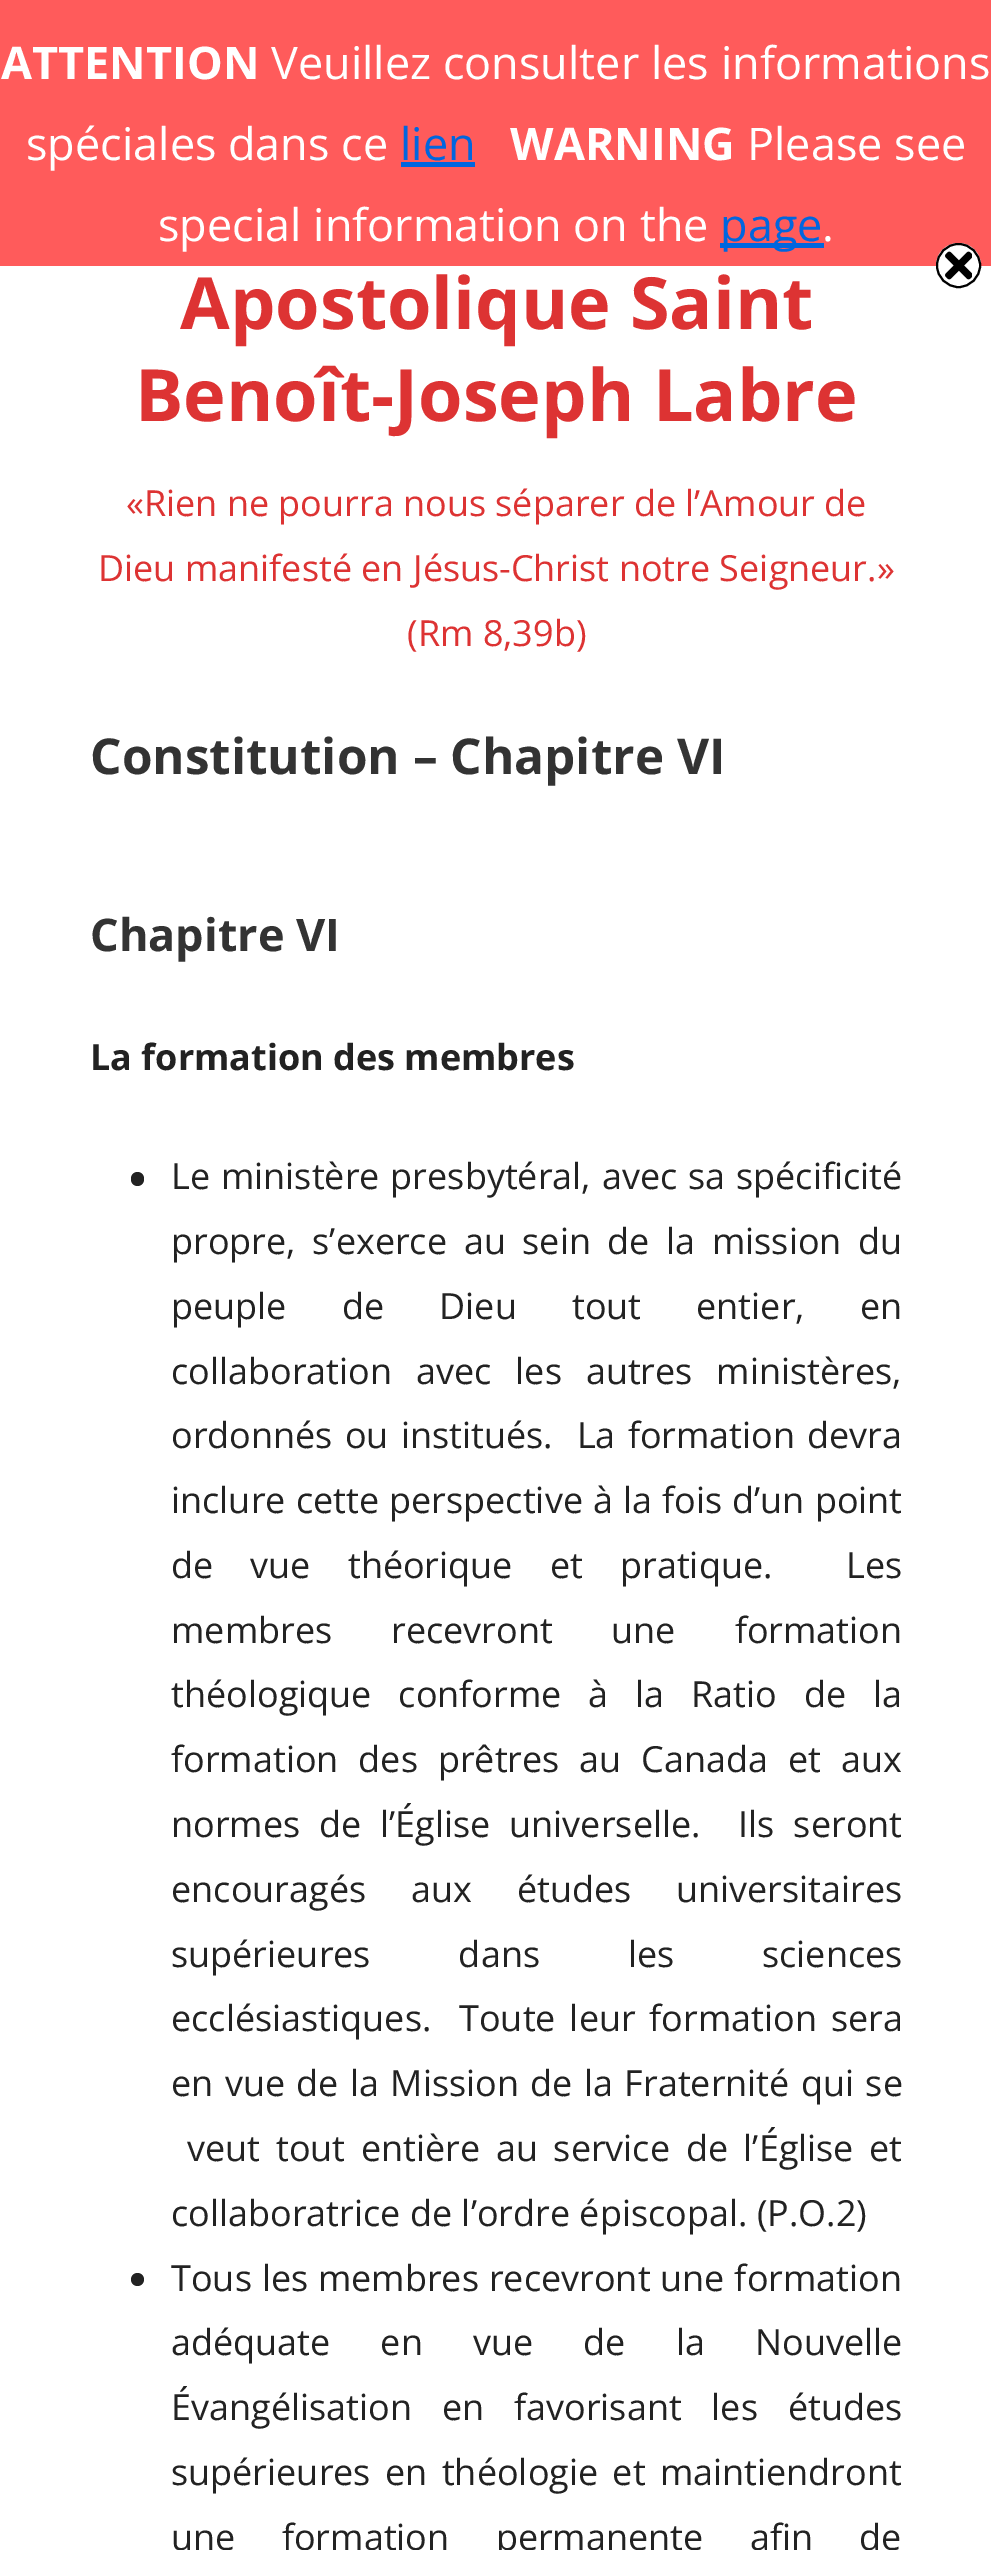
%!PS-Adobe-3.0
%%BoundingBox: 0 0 991 2550
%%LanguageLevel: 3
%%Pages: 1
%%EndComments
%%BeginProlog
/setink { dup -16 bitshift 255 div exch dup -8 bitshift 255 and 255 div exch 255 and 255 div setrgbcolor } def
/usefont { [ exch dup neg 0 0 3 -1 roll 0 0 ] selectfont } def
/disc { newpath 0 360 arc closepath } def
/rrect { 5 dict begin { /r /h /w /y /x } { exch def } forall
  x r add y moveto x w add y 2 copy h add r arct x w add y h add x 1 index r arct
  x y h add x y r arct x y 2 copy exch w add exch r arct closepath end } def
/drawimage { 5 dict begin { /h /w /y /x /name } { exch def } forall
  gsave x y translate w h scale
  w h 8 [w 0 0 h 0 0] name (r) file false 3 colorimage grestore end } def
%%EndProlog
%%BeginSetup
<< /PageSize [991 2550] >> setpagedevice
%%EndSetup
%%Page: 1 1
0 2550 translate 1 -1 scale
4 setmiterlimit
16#FFFFFF setink
0 0 991 2550 rectfill
16#FF5B5B setink
0 0 991 266 rectfill
/OpenSans-Bold 45 usefont
16#FFFFFF setink
1 79 moveto (ATTENTION) show
/OpenSans-Regular 45 usefont
271 79 moveto (Veuillez consulter les informations) show
26 160 moveto (spéciales dans ce) show
16#0066DF setink
400 160 moveto (lien) show
401 162 74 5 rectfill
/OpenSans-Bold 45 usefont
16#FFFFFF setink
510 160 moveto (WARNING) show
/OpenSans-Regular 45 usefont
747 160 moveto (Please see) show
158 241 moveto (special information on the) show
16#0066DF setink
720 243 104 5 rectfill
720 241 moveto (page) show
16#FFFFFF setink
822 241 moveto (.) show
958.5 265.5 22.5 disc fill
(img1.raw) 945 251 27 29 drawimage
16#000000 setink
2 setlinewidth
958.5 265.5 21.5 disc stroke
/OpenSans-Bold 72 usefont
16#DD3333 setink
180 329 moveto (Apostolique Saint) show
135 421 moveto (Benoît-Joseph Labre) show
/OpenSans-Regular 36 usefont
[
    [(«Rien ne pourra nous séparer de l’Amour de) 126 516]
    [(Dieu manifesté en Jésus-Christ notre Seigneur.») 98 581]
    [(\(Rm 8,39b\)) 407 646]
] { aload pop moveto show } forall
/OpenSans-Bold 49.5 usefont
16#333333 setink
90 774 moveto (Constitution – Chapitre VI) show
/OpenSans-Bold 45 usefont
90 951 moveto (Chapitre VI) show
/OpenSans-Bold 36 usefont
16#222222 setink
90 1070 moveto (La formation des membres) show
131 1172 13 14 6.5 rrect fill
/OpenSans-Regular 36 usefont
171 1189 moveto 1.5 0 32 (Le ministère presbytéral, avec sa spécificité) widthshow
171 1254 moveto 7.25 0 32 (propre, s’exerce au sein de la mission du) widthshow
171 1319 moveto 45.75 0 32 (peuple de Dieu tout entier, en) widthshow
171 1384 moveto 14.5 0 32 (collaboration avec les autres ministères,) widthshow
171 1448 moveto 2.75 0 32 (ordonnés ou institués.  La formation devra) widthshow
171 1513 moveto 0.75 0 32 (inclure cette perspective à la fois d’un point) widthshow
171 1578 moveto 27.75 0 32 (de vue théorique et pratique.  Les) widthshow
171 1643 moveto 49.5 0 32 (membres recevront une formation) widthshow
171 1707 moveto 17.5 0 32 (théologique conforme à la Ratio de la) widthshow
171 1772 moveto 10.5 0 32 (formation des prêtres au Canada et aux) widthshow
171 1837 moveto 9.5 0 32 (normes de l’Église universelle.  Ils seront) widthshow
171 1902 moveto 35.5 0 32 (encouragés aux études universitaires) widthshow
171 1967 moveto 78.5 0 32 (supérieures dans les sciences) widthshow
171 2031 moveto 4.5 0 32 (ecclésiastiques.  Toute leur formation sera) widthshow
171 2096 moveto 2 0 32 (en vue de la Mission de la Fraternité qui se) widthshow
187 2161 moveto 6.25 0 32 (veut tout entière au service de l’Église et) widthshow
171 2226 moveto (collaboratrice de l’ordre épiscopal. \(P.O.2\)) show
137.5 2279.5 6.5 disc fill
171 2291 moveto 0.5 0 32 (Tous les membres recevront une formation) widthshow
171 2355 moveto 40.75 0 32 (adéquate en vue de la Nouvelle) widthshow
171 2420 moveto 20.5 0 32 (Évangélisation en favorisant les études) widthshow
171 2485 moveto 5 0 32 (supérieures en théologie et maintiendront) widthshow
171 2550 moveto 37 0 32 (une formation permanente afin de) widthshow
showpage
%%EOF
